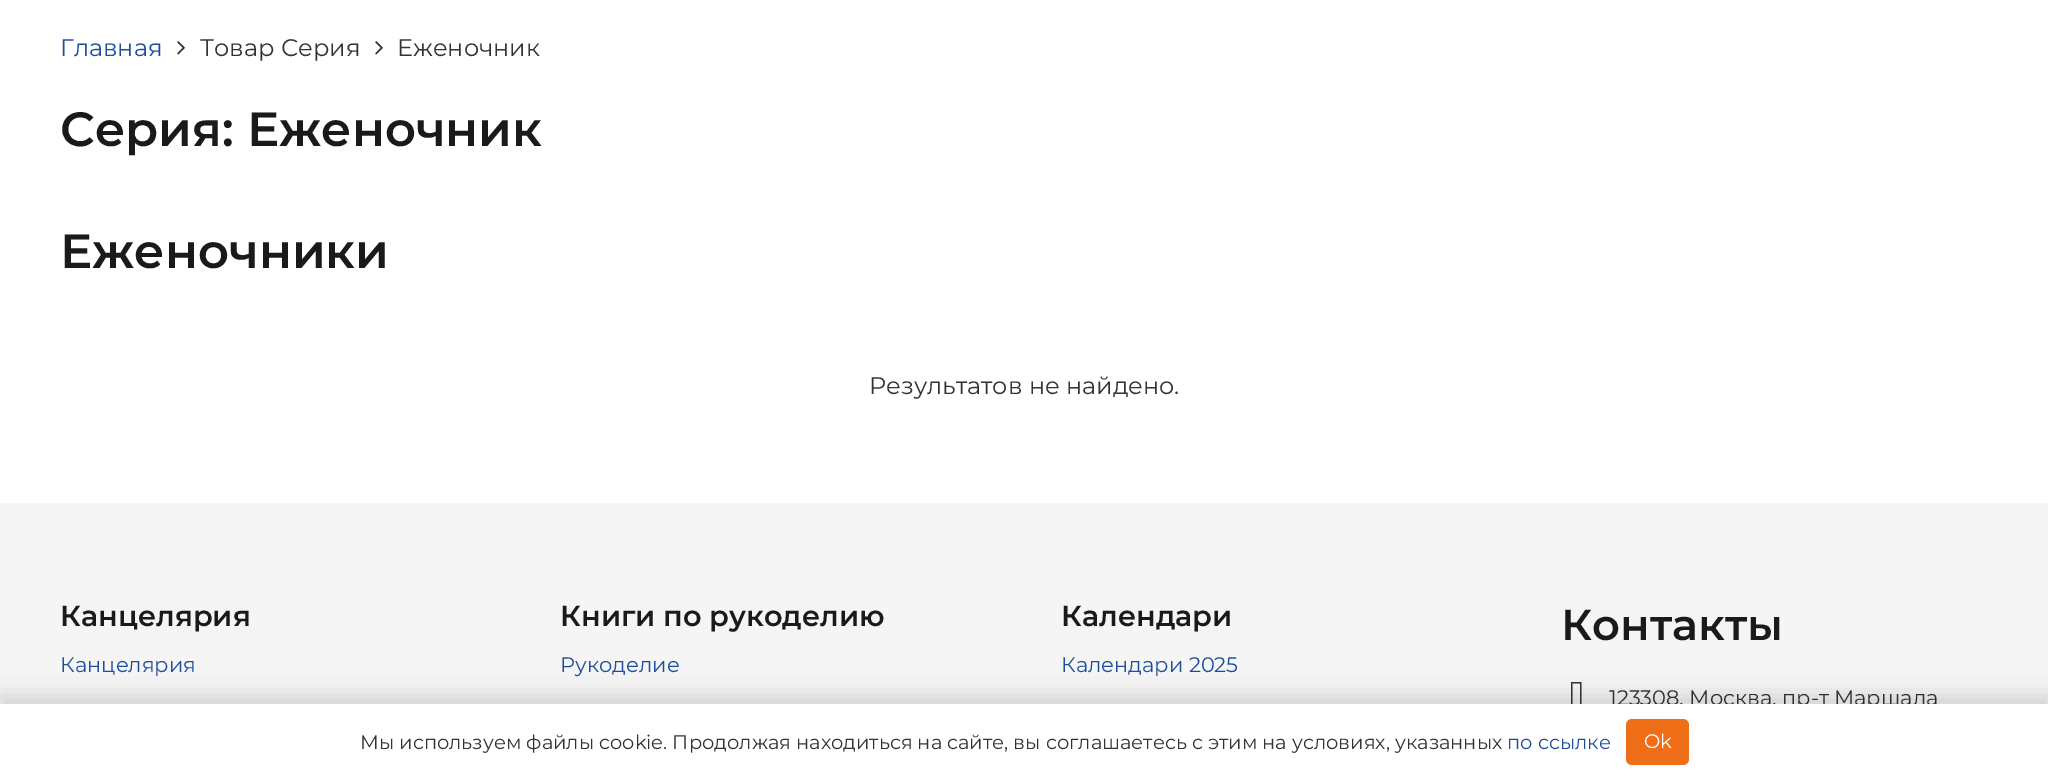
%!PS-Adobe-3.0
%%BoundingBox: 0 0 2048 780
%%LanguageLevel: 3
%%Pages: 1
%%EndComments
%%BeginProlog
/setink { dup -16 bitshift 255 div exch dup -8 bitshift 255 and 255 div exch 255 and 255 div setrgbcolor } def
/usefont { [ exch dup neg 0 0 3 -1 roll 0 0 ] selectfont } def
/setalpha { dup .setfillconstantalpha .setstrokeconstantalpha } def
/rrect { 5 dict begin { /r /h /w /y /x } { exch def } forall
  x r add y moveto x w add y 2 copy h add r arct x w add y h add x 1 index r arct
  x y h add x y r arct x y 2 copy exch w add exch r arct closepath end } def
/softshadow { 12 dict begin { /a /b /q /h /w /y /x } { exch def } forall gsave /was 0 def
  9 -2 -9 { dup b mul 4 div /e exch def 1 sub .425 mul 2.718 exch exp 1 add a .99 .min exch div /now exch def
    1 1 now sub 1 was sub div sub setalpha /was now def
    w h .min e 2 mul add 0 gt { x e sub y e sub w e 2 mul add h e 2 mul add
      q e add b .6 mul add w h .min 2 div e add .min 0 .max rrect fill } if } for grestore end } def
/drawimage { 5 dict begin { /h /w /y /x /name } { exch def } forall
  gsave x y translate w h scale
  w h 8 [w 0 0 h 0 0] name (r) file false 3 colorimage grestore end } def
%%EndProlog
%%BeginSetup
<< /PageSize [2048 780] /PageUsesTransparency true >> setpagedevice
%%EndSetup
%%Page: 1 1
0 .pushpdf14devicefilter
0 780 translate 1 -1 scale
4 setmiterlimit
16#FFFFFF setink
0 0 2048 780 rectfill
/Montserrat-Regular 24 usefont
16#1D4E9E setink
60 56 moveto (Главная) show
(img1.raw) 177 41 8 14 drawimage
16#333333 setink
200 56 moveto (Товар Серия) show
(img1.raw) 375 41 8 14 drawimage
397 56 moveto (Еженочник) show
/Montserrat-SemiBold 48 usefont
16#1A1A1A setink
60 146 moveto (Серия: Еженочник) show
60 268 moveto (Еженочники) show
/Montserrat-Regular 24 usefont
16#333333 setink
869 394 moveto (Результатов не найдено.) show
16#F5F5F5 setink
0 503 2048 201 rectfill
/Montserrat-SemiBold 28.75 usefont
16#1A1A1A setink
60 626 moveto (Канцелярия) show
/Montserrat-Regular 21 usefont
16#1D4E9E setink
60 672 moveto (Канцелярия) show
/Montserrat-SemiBold 28.75 usefont
16#1A1A1A setink
560 626 moveto (Книги по рукоделию) show
/Montserrat-Regular 21 usefont
16#1D4E9E setink
560 672 moveto (Рукоделие) show
/Montserrat-SemiBold 28.75 usefont
16#1A1A1A setink
1061 626 moveto (Календари) show
/Montserrat-Regular 21 usefont
16#1D4E9E setink
1061 672 moveto (Календари 2025) show
/Montserrat-SemiBold 43.25 usefont
16#1A1A1A setink
1561 640 moveto (Контакты) show
16#333333 setink
1572.5 704.5 moveto 1572.5 683.5 lineto 1580 683.5 lineto 1580 704.5 lineto closepath 1571 706.5 moveto 1581.5 706.5 lineto 1581.5 682 lineto 1571 682 lineto closepath fill
/Montserrat-Regular 21 usefont
1609 705 moveto (123308, Москва, пр-т Маршала) show
16#000000 setink
0 696 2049 77 0 11 0.15 softshadow
16#FFFFFF setink
0 704 2048 76 rectfill
/Montserrat-Regular 19.5 usefont
16#333333 setink
360 749 moveto (Мы используем файлы cookie. Продолжая находиться на сайте, вы соглашаетесь с этим на условиях, указанных) show
16#1D4E9E setink
1507 749 moveto (по ссылке) show
16#EF6F18 setink
1626 719 63 46 6 rrect fill
16#FFFFFF setink
1644 748 moveto (Ok) show
.poppdf14devicefilter showpage
%%EOF
